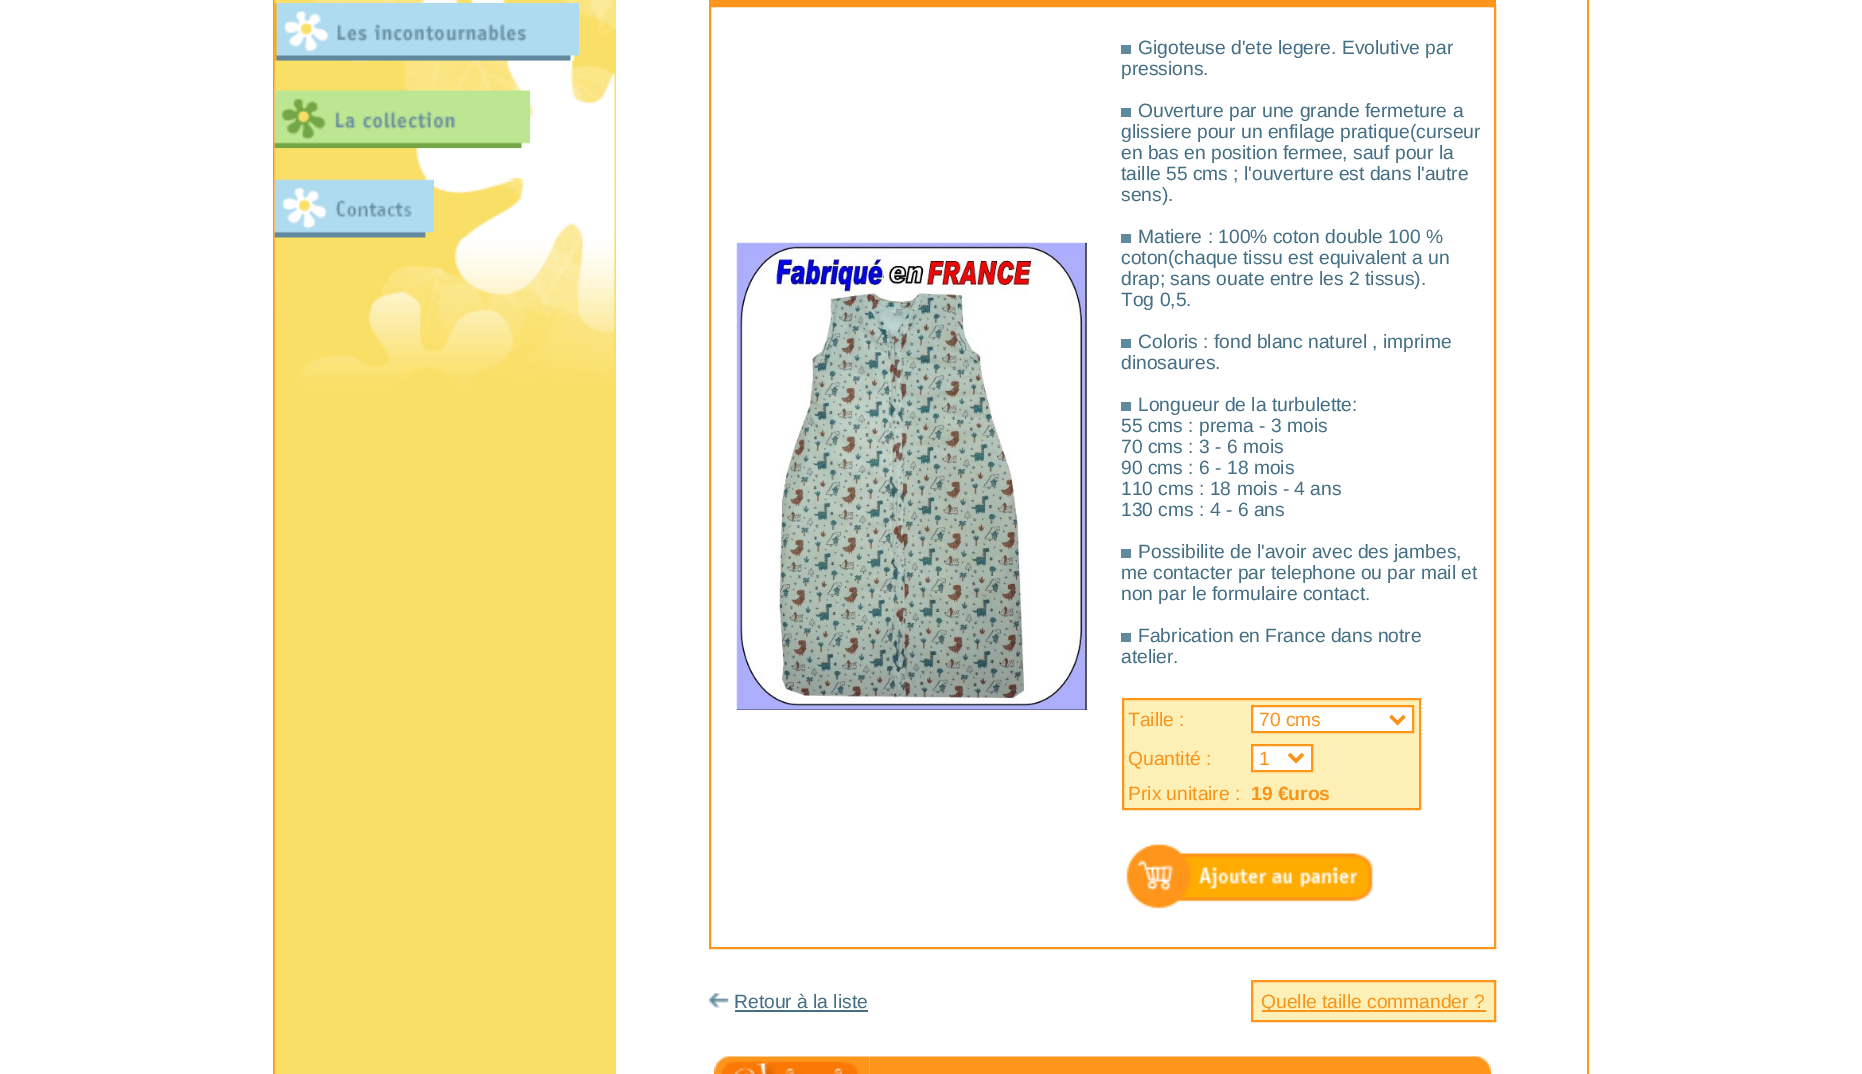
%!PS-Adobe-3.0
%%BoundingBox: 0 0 1862 1074
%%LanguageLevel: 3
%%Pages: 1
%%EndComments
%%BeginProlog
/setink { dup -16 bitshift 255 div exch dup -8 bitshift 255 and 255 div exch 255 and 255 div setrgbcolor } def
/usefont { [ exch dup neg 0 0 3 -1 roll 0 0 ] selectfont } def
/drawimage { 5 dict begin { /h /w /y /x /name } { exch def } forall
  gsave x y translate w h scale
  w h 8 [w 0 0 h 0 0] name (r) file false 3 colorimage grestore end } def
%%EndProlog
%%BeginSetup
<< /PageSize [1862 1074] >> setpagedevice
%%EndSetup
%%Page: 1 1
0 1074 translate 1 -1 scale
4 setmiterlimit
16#FFFFFF setink
0 0 1862 1074 rectfill
16#FF961B setink
273 0 1316 1074 rectfill
16#FFFFFF setink
616 0 971 1074 rectfill
(img1.raw) 274 0 342 1074 drawimage
(img2.raw) 274 0 342 3 drawimage
(img3.raw) 274 3 306 58 drawimage
(img4.raw) 579 3 37 53 drawimage
(img5.raw) 274 60 341 31 drawimage
(img6.raw) 274 90 257 59 drawimage
(img7.raw) 530 90 85 59 drawimage
(img8.raw) 274 148 341 30 drawimage
(img9.raw) 274 178 160 60 drawimage
(img10.raw) 434 179 181 59 drawimage
16#FF961B setink
709 0 787 5 rectfill
2 setlinewidth
710 6 785 942 rectstroke
(img11.raw) 736 242 351 468 drawimage
/LiberationSans-Regular 19.25 usefont
16#456F84 setink
1138 54 moveto (Gigoteuse d'ete legere. Evolutive par) show
16#60899D setink
1121 45 10 9 rectfill
16#456F84 setink
1121 75 moveto (pressions.) show
1138 117 moveto (Ouverture par une grande fermeture a) show
16#60899D setink
1121 108 10 9 rectfill
16#456F84 setink
[
    [(glissiere pour un enfilage pratique\(curseur) 1121 138]
    [(en bas en position fermee, sauf pour la) 1121 159]
    [(taille 55 cms ; l'ouverture est dans l'autre) 1121 180]
    [(sens\).) 1121 201]
    [(Matiere : 100% coton double 100 %) 1138 243]
] { aload pop moveto show } forall
16#60899D setink
1121 234 10 9 rectfill
16#456F84 setink
[
    [(coton\(chaque tissu est equivalent a un) 1121 264]
    [(drap; sans ouate entre les 2 tissus\).) 1121 285]
    [(Tog 0,5.) 1121 306]
    [(Coloris : fond blanc naturel , imprime) 1138 348]
] { aload pop moveto show } forall
16#60899D setink
1121 339 10 9 rectfill
16#456F84 setink
1121 369 moveto (dinosaures.) show
1138 411 moveto (Longueur de la turbulette:) show
16#60899D setink
1121 402 10 9 rectfill
16#456F84 setink
[
    [(55 cms : prema - 3 mois) 1121 432]
    [(70 cms : 3 - 6 mois) 1121 453]
    [(90 cms : 6 - 18 mois) 1121 474]
    [(110 cms : 18 mois - 4 ans) 1121 495]
    [(130 cms : 4 - 6 ans) 1121 516]
    [(Possibilite de l'avoir avec des jambes,) 1138 558]
] { aload pop moveto show } forall
16#60899D setink
1121 549 10 9 rectfill
16#456F84 setink
[
    [(me contacter par telephone ou par mail et) 1121 579]
    [(non par le formulaire contact.) 1121 600]
    [(Fabrication en France dans notre) 1138 642]
] { aload pop moveto show } forall
16#60899D setink
1121 633 10 9 rectfill
16#456F84 setink
1121 663 moveto (atelier.) show
16#FDF0B6 setink
1123 699 moveto 1420 699 lineto 1420 809 lineto 1123 809 lineto closepath gsave fill grestore
16#FF961B setink
stroke
16#FA931A setink
1128 726 moveto (Taille :) show
16#FFFFFF setink
1252 706 moveto 1413 706 lineto 1413 732 lineto 1252 732 lineto closepath gsave fill grestore
16#FF961B setink
stroke
16#FA931A setink
3.5 setlinewidth
1390.5 716 moveto 1397.5 723 lineto 1404.5 716 lineto stroke
1259 726 moveto (70 cms) show
1128 765 moveto (Quantité :) show
16#FFFFFF setink
1252 745 moveto 1312 745 lineto 1312 771 lineto 1252 771 lineto closepath gsave fill grestore
16#FF961B setink
2 setlinewidth
stroke
16#FA931A setink
3.5 setlinewidth
1289 754 moveto 1296 761 lineto 1303 754 lineto stroke
1259 765 moveto (1) show
1128 800 moveto (Prix unitaire :) show
/LiberationSans-Bold 19.25 usefont
1251 800 moveto (19 €uros) show
(img12.raw) 1126 844 247 65 drawimage
(img13.raw) 708 993 21 15 drawimage
/LiberationSans-Regular 19.25 usefont
16#456F84 setink
734 1008 moveto (Retour à la liste) show
735 1010 133 2 rectfill
16#FDF0B6 setink
1252 981 moveto 1495 981 lineto 1495 1021 lineto 1252 1021 lineto closepath gsave fill grestore
16#FF961B setink
2 setlinewidth
stroke
16#FA931A setink
1262 1010 224 2 rectfill
1261 1008 moveto (Quelle taille commander ?) show
(img15.raw) 869 1056 622 18 drawimage
(img14.raw) 714 1056 156 18 drawimage
showpage
%%EOF
